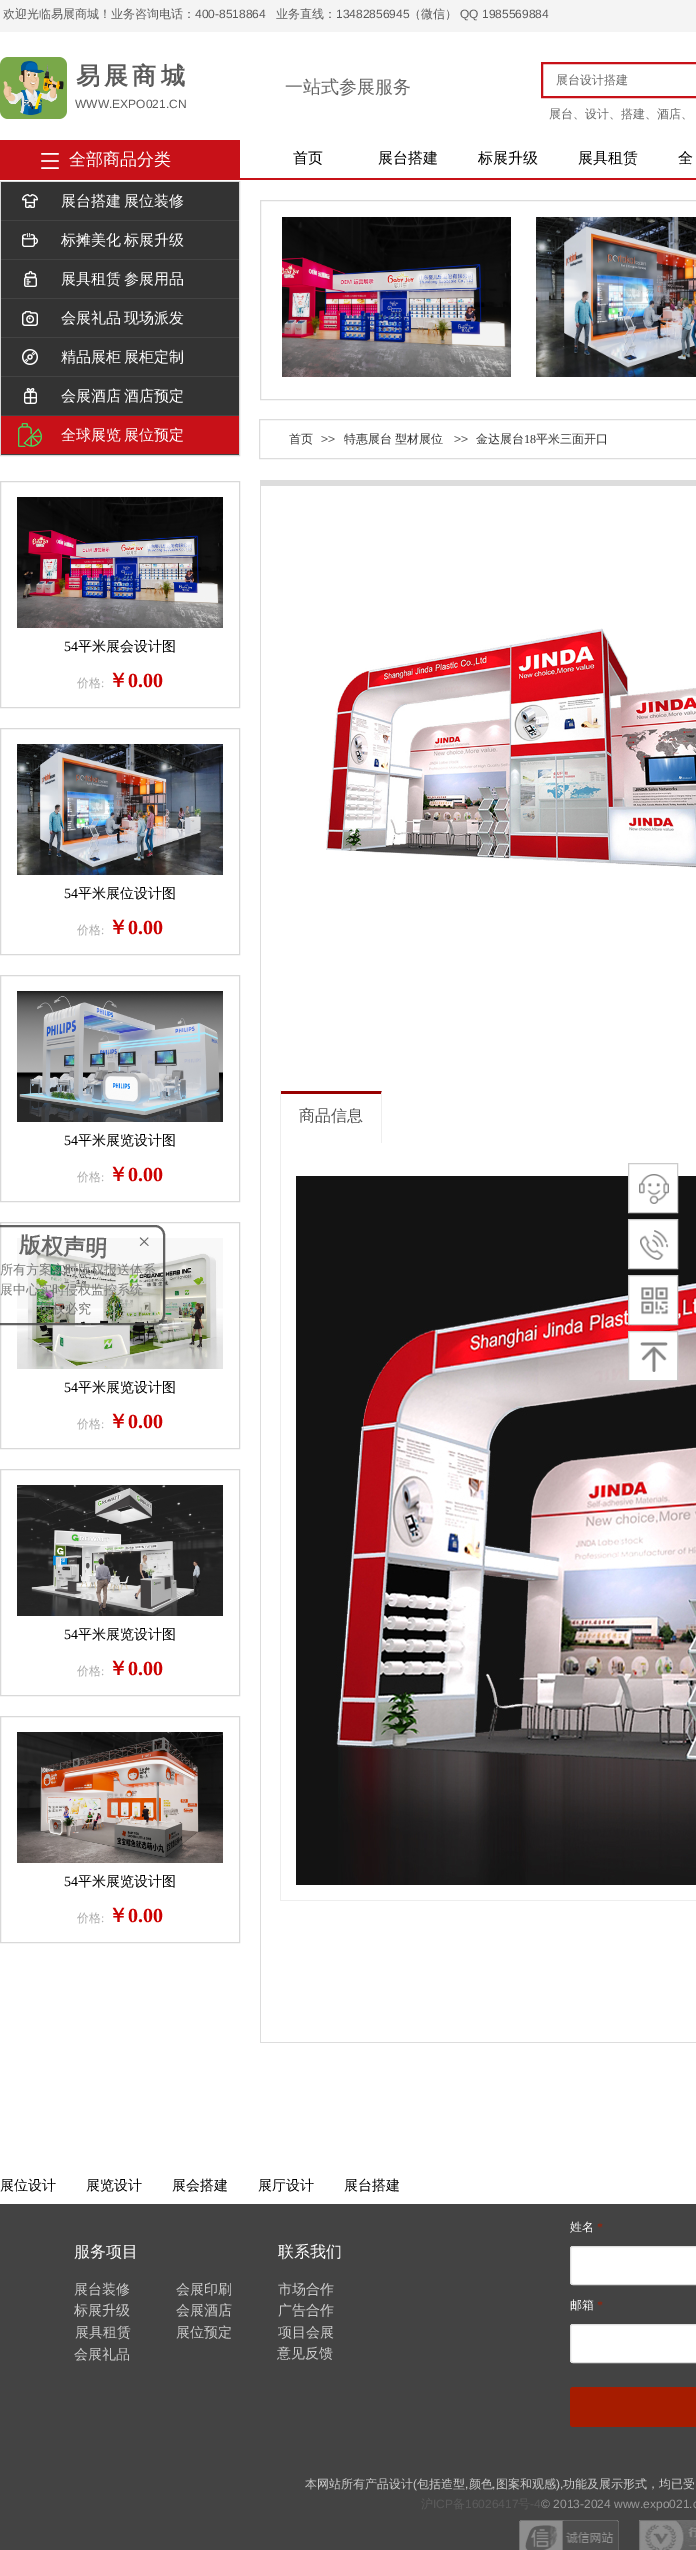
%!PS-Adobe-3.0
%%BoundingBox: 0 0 696 2550
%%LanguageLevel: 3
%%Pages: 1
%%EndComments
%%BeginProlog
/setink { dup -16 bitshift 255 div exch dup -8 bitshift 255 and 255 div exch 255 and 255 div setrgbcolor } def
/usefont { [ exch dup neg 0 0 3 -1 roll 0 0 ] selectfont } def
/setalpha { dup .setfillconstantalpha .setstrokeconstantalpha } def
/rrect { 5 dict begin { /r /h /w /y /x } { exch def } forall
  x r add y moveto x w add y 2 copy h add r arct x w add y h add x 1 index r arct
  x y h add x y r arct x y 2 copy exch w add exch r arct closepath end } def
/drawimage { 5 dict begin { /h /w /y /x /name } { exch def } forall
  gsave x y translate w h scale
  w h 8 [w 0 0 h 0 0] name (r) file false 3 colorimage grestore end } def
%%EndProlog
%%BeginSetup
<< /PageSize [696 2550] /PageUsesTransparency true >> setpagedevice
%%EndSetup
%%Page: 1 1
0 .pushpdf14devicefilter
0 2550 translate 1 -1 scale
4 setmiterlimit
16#FFFFFF setink
0 0 696 2550 rectfill
16#F4F4F4 setink
0 0 696 32 rectfill
/WenQuanYiZenHei-Medium 12 usefont
16#5A5A5A setink
3 18 moveto (欢迎光临易展商城！业务咨询电话：) show
/LiberationSans-Regular 12 usefont
195 18 moveto (400-8518864) show
/WenQuanYiZenHei-Medium 12 usefont
276 18 moveto (业务直线：) show
/LiberationSans-Regular 12 usefont
336 18 moveto (13482856945) show
/WenQuanYiZenHei-Medium 12 usefont
409 18 moveto (（微信）) show
/LiberationSans-Regular 12 usefont
460 18 moveto (QQ 1985569884) show
(img1.raw) 0 57 67 62 drawimage
/WenQuanYiZenHei-Bold 24 usefont
76 84 moveto -1 0 32 -1 0 (易 展 商 城) awidthshow
/WenQuanYiZenHei-Medium 18 usefont
16#666666 setink
285 93 moveto (一站式参展服务) show
16#C81118 setink
2 setlinewidth
542 63 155 34 rectstroke
/WenQuanYiZenHei-Medium 12 usefont
16#666666 setink
556 84 moveto (展台设计搭建) show
549 118 moveto (展台、设计、搭建、酒店、) show
/LiberationSans-Regular 12 usefont
16#5A5A5A setink
75 108 moveto (WWW.EXPO021.CN) show
16#C81118 setink
0 140 240 40 rectfill
(img2.raw) 41 153 18 16 drawimage
/WenQuanYiZenHei-Medium 17 usefont
16#FFFFFF setink
69 165 moveto (全部商品分类) show
/WenQuanYiZenHei-Medium 15 usefont
16#000000 setink
[
    [(首页) 293 163]
    [(展台搭建) 378 163]
    [(标展升级) 478 163]
    [(展具租赁) 578 163]
    [(全) 678 163]
] { aload pop moveto show } forall
16#C81118 setink
240 178 456 2 rectfill
16#D9D9D9 setink
1 setlinewidth
0.5 181.5 239 274 rectstroke
16#333333 setink
1 182 238 38 rectfill
16#434343 setink
1 220 238 1 rectfill
(img3.raw) 22 194 16 14 drawimage
16#FFFFFF setink
61 206 moveto -1 0 32 (展台搭建 展位装修) widthshow
16#333333 setink
1 221 238 38 rectfill
16#434343 setink
1 259 238 1 rectfill
(img4.raw) 22 233 16 14 drawimage
16#FFFFFF setink
61 245 moveto -1 0 32 (标摊美化 标展升级) widthshow
16#333333 setink
1 260 238 38 rectfill
16#434343 setink
1 298 238 1 rectfill
(img5.raw) 24 271 13 16 drawimage
16#FFFFFF setink
61 284 moveto -1 0 32 (展具租赁 参展用品) widthshow
16#333333 setink
1 299 238 38 rectfill
16#434343 setink
1 337 238 1 rectfill
(img6.raw) 22 311 16 15 drawimage
16#FFFFFF setink
61 323 moveto -1 0 32 (会展礼品 现场派发) widthshow
16#333333 setink
1 338 238 38 rectfill
16#434343 setink
1 376 238 1 rectfill
(img7.raw) 22 349 16 16 drawimage
16#FFFFFF setink
61 362 moveto -1 0 32 (精品展柜 展柜定制) widthshow
16#333333 setink
1 377 238 38 rectfill
16#434343 setink
1 415 238 1 rectfill
(img8.raw) 24 388 13 16 drawimage
16#FFFFFF setink
61 401 moveto -1 0 32 (会展酒店 酒店预定) widthshow
16#C81118 setink
1 416 238 38 rectfill
16#434343 setink
1 454 238 1 rectfill
(img9.raw) 18 423 24 24 drawimage
16#FFFFFF setink
61 440 moveto -1 0 32 (全球展览 展位预定) widthshow
16#DDDDDD setink
260.5 200.5 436 199 rectstroke
(img10.raw) 282 217 229 160 drawimage
(img11.raw) 536 217 160 160 drawimage
259.5 419.5 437 39 rectstroke
/WenQuanYiZenHei-Medium 12 usefont
16#333333 setink
289 443 moveto (首页) show
/LiberationSans-Regular 12 usefont
16#5A5A5A setink
321 443 moveto (>>) show
/WenQuanYiZenHei-Medium 12 usefont
16#333333 setink
344 443 moveto -1 0 32 (特惠展台 型材展位) widthshow
/LiberationSans-Regular 12 usefont
16#5A5A5A setink
454 443 moveto (>>) show
/WenQuanYiZenHei-Medium 12 usefont
16#333333 setink
476 443 moveto (金达展台) show
/LiberationSerif-Regular 12 usefont
524 443 moveto (18) show
/WenQuanYiZenHei-Medium 12 usefont
536 443 moveto (平米三面开口) show
16#D9D9D9 setink
0.5 481.5 239 226 rectstroke
(img12.raw) 17 497 206 131 drawimage
/LiberationSerif-Regular 14 usefont
16#000000 setink
64 651 moveto (54) show
/WenQuanYiZenHei-Medium 14 usefont
78 651 moveto (平米展会设计图) show
/WenQuanYiZenHei-Medium 12 usefont
16#ACACAC setink
77 687 moveto (价格) show
/LiberationSerif-Regular 12 usefont
101 687 moveto (:) show
/WenQuanYiZenHei-Bold 20 usefont
16#CC0000 setink
108 687 moveto (￥) show
/LiberationSerif-Bold 20 usefont
128 687 moveto (0.00) show
16#D9D9D9 setink
0.5 728.5 239 226 rectstroke
(img13.raw) 17 744 206 131 drawimage
/LiberationSerif-Regular 14 usefont
16#000000 setink
64 898 moveto (54) show
/WenQuanYiZenHei-Medium 14 usefont
78 898 moveto (平米展位设计图) show
/WenQuanYiZenHei-Medium 12 usefont
16#ACACAC setink
77 934 moveto (价格) show
/LiberationSerif-Regular 12 usefont
101 934 moveto (:) show
/WenQuanYiZenHei-Bold 20 usefont
16#CC0000 setink
108 934 moveto (￥) show
/LiberationSerif-Bold 20 usefont
128 934 moveto (0.00) show
16#D9D9D9 setink
0.5 975.5 239 226 rectstroke
(img14.raw) 17 991 206 131 drawimage
/LiberationSerif-Regular 14 usefont
16#000000 setink
64 1145 moveto (54) show
/WenQuanYiZenHei-Medium 14 usefont
78 1145 moveto (平米展览设计图) show
/WenQuanYiZenHei-Medium 12 usefont
16#ACACAC setink
77 1181 moveto (价格) show
/LiberationSerif-Regular 12 usefont
101 1181 moveto (:) show
/WenQuanYiZenHei-Bold 20 usefont
16#CC0000 setink
108 1181 moveto (￥) show
/LiberationSerif-Bold 20 usefont
128 1181 moveto (0.00) show
16#D9D9D9 setink
0.5 1222.5 239 226 rectstroke
(img15.raw) 17 1238 206 131 drawimage
/LiberationSerif-Regular 14 usefont
16#000000 setink
64 1392 moveto (54) show
/WenQuanYiZenHei-Medium 14 usefont
78 1392 moveto (平米展览设计图) show
/WenQuanYiZenHei-Medium 12 usefont
16#ACACAC setink
77 1428 moveto (价格) show
/LiberationSerif-Regular 12 usefont
101 1428 moveto (:) show
/WenQuanYiZenHei-Bold 20 usefont
16#CC0000 setink
108 1428 moveto (￥) show
/LiberationSerif-Bold 20 usefont
128 1428 moveto (0.00) show
16#D9D9D9 setink
0.5 1469.5 239 226 rectstroke
(img16.raw) 17 1485 206 131 drawimage
/LiberationSerif-Regular 14 usefont
16#000000 setink
64 1639 moveto (54) show
/WenQuanYiZenHei-Medium 14 usefont
78 1639 moveto (平米展览设计图) show
/WenQuanYiZenHei-Medium 12 usefont
16#ACACAC setink
77 1675 moveto (价格) show
/LiberationSerif-Regular 12 usefont
101 1675 moveto (:) show
/WenQuanYiZenHei-Bold 20 usefont
16#CC0000 setink
108 1675 moveto (￥) show
/LiberationSerif-Bold 20 usefont
128 1675 moveto (0.00) show
16#D9D9D9 setink
0.5 1716.5 239 226 rectstroke
(img17.raw) 17 1732 206 131 drawimage
/LiberationSerif-Regular 14 usefont
16#000000 setink
64 1886 moveto (54) show
/WenQuanYiZenHei-Medium 14 usefont
78 1886 moveto (平米展览设计图) show
/WenQuanYiZenHei-Medium 12 usefont
16#ACACAC setink
77 1922 moveto (价格) show
/LiberationSerif-Regular 12 usefont
101 1922 moveto (:) show
/WenQuanYiZenHei-Bold 20 usefont
16#CC0000 setink
108 1922 moveto (￥) show
/LiberationSerif-Bold 20 usefont
128 1922 moveto (0.00) show
[
    [260 480 436 6 16#DDDDDD]
    [260 2042 436 1 16#DDDDDD]
    [260 480 1 1563 16#DDDDDD]
] { aload pop setink rectfill } forall
(img18.raw) 326 628 370 240 drawimage
16#EEEEEE setink
280 1900 416 1 rectfill
280 1090 1 811 rectfill
16#980000 setink
281 1091 moveto 382 1091 lineto 381 1094 lineto 281 1094 lineto closepath fill
gsave
281 1090 415 53 rectclip
16#EEEEEE setink
382 1091 moveto 382 1146 lineto 381 1146 lineto 381 1094 lineto closepath fill
grestore
/WenQuanYiZenHei-Medium 16 usefont
16#535353 setink
299 1121 moveto (商品信息) show
(img19.raw) 296 1176 400 709 drawimage
0.83 setalpha
16#434343 setink
2 setlinewidth
-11 1226 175 98 9 rrect stroke
/WenQuanYiZenHei-Bold 22 usefont
1 setalpha
16#666666 setink
gsave 19 1252 translate 2.4 rotate 0 0 moveto (版权声明) show grestore
/LiberationSerif-Regular 22 usefont
138 1249 moveto (×) show
/WenQuanYiZenHei-Medium 13 usefont
16#797A79 setink
0 1274 moveto (所有方案实时版权报送体系) show
0 1294 moveto (展中心实时侵权监控系统) show
16#727370 setink
39 1313 moveto (侵权必究) show
/WenQuanYiZenHei-Medium 14 usefont
16#000000 setink
[
    [(展位设计) 0 2190]
    [(展览设计) 86 2190]
    [(展会搭建) 172 2190]
    [(展厅设计) 258 2190]
    [(展台搭建) 344 2190]
] { aload pop moveto show } forall
16#434343 setink
0 2204 696 346 rectfill
/WenQuanYiZenHei-Medium 16 usefont
16#FFFFFF setink
74 2257 moveto (服务项目) show
278 2257 moveto (联系我们) show
/WenQuanYiZenHei-Medium 12 usefont
570 2231 moveto (姓名) show
/LiberationSerif-Regular 12 usefont
16#A61C00 setink
597 2231 moveto (*) show
16#FFFFFF setink
573 2246 moveto 696 2246 lineto 696 2285 lineto 573 2285 lineto 571.5 2285 570 2283.5 570 2282 curveto 570 2249 lineto 570 2247.5 571.5 2246 573 2246 curveto closepath fill
16#DEDEDE setink
1 setlinewidth
570.5 2246.5 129 38 2.5 rrect stroke
/WenQuanYiZenHei-Medium 12 usefont
16#FFFFFF setink
570 2309 moveto (邮箱) show
/LiberationSerif-Regular 12 usefont
16#A61C00 setink
597 2309 moveto (*) show
16#FFFFFF setink
573 2324 moveto 696 2324 lineto 696 2363 lineto 573 2363 lineto 571.5 2363 570 2361.5 570 2360 curveto 570 2327 lineto 570 2325.5 571.5 2324 573 2324 curveto closepath fill
16#DEDEDE setink
570.5 2324.5 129 38 2.5 rrect stroke
16#A61C00 setink
573 2387 moveto 696 2387 lineto 696 2427 lineto 573 2427 lineto 571.5 2427 570 2425.5 570 2424 curveto 570 2390 lineto 570 2388.5 571.5 2387 573 2387 curveto closepath fill
/WenQuanYiZenHei-Medium 14 usefont
16#CCCCCC setink
[
    [(展台装修) 74 2294]
    [(会展印刷) 176 2294]
    [(市场合作) 278 2294]
    [(标展升级) 74 2315]
    [(会展酒店) 176 2315]
    [(广告合作) 278 2315]
    [(展具租赁) 75 2337]
    [(展位预定) 176 2337]
    [(项目会展) 278 2337]
    [(会展礼品) 74 2359]
    [(意见反馈) 277 2358]
] { aload pop moveto show } forall
/WenQuanYiZenHei-Medium 12 usefont
305 2488 moveto (本网站所有产品设计) show
/LiberationSans-Regular 12 usefont
413 2488 moveto (\() show
/WenQuanYiZenHei-Medium 12 usefont
417 2488 moveto (包括造型 颜色 图案和观感) show
/LiberationSans-Regular 12 usefont
556 2488 moveto (\),) show
/WenQuanYiZenHei-Medium 12 usefont
563 2488 moveto (功能及展示形式，均已受) show
/LiberationSans-Regular 12 usefont
465 2488 moveto (,) show
492 2488 moveto (,) show
/WenQuanYiZenHei-Medium 12 usefont
16#5A5A5A setink
421 2508 moveto (沪) show
/LiberationSans-Regular 12 usefont
433 2508 moveto (ICP) show
/WenQuanYiZenHei-Medium 12 usefont
453 2508 moveto (备) show
/LiberationSans-Regular 12 usefont
465 2508 moveto (16026417) show
/WenQuanYiZenHei-Medium 12 usefont
518 2508 moveto (号) show
/LiberationSans-Regular 12 usefont
530 2508 moveto (-4) show
16#999999 setink
541 2508 moveto (© 2013-2024 www.expo021.c) show
(img20.raw) 519 2520 100 30 drawimage
(img21.raw) 639 2520 57 30 drawimage
16#FFFFFF setink
629 1176 48 36 rectfill
16#CCCCCC setink
628.5 1163.5 49 49 rectstroke
(img22.raw) 639 1174 30 30 drawimage
16#FFFFFF setink
628.5 1219.5 moveto 677.5 1219.5 lineto 677.5 1268.5 lineto 628.5 1268.5 lineto closepath gsave fill grestore
16#CCCCCC setink
stroke
(img23.raw) 640 1230 29 30 drawimage
16#FFFFFF setink
628.5 1275.5 moveto 677.5 1275.5 lineto 677.5 1324.5 lineto 628.5 1324.5 lineto closepath gsave fill grestore
16#CCCCCC setink
stroke
(img24.raw) 641 1287 28 28 drawimage
16#FFFFFF setink
628.5 1331.5 moveto 677.5 1331.5 lineto 677.5 1380.5 lineto 628.5 1380.5 lineto closepath gsave fill grestore
16#CCCCCC setink
stroke
(img25.raw) 640 1342 28 30 drawimage
.poppdf14devicefilter showpage
%%EOF
